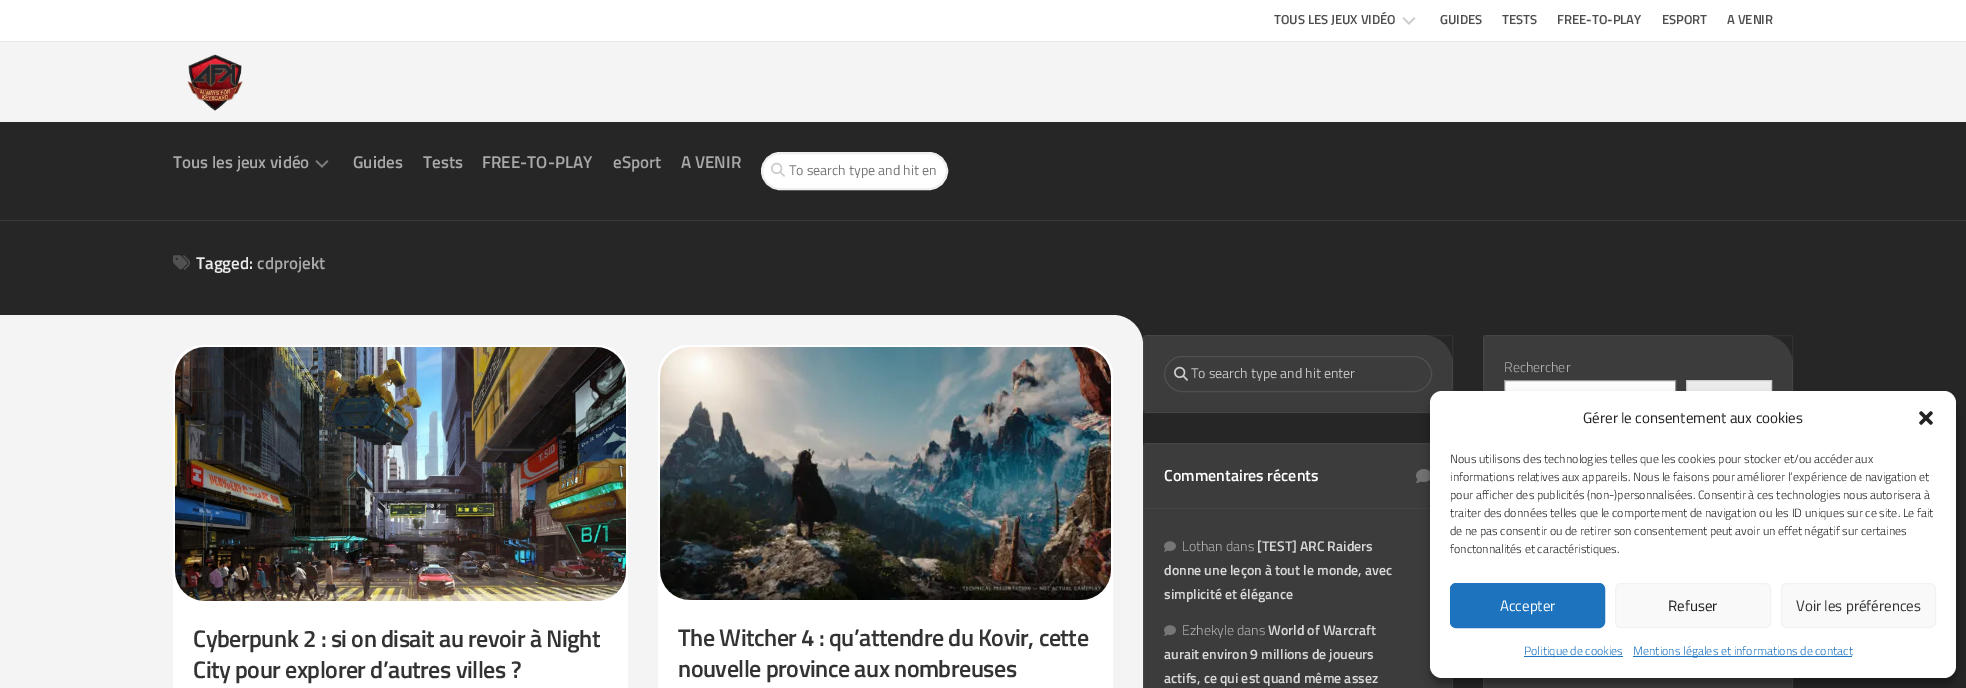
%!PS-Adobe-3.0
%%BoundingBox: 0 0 1966 688
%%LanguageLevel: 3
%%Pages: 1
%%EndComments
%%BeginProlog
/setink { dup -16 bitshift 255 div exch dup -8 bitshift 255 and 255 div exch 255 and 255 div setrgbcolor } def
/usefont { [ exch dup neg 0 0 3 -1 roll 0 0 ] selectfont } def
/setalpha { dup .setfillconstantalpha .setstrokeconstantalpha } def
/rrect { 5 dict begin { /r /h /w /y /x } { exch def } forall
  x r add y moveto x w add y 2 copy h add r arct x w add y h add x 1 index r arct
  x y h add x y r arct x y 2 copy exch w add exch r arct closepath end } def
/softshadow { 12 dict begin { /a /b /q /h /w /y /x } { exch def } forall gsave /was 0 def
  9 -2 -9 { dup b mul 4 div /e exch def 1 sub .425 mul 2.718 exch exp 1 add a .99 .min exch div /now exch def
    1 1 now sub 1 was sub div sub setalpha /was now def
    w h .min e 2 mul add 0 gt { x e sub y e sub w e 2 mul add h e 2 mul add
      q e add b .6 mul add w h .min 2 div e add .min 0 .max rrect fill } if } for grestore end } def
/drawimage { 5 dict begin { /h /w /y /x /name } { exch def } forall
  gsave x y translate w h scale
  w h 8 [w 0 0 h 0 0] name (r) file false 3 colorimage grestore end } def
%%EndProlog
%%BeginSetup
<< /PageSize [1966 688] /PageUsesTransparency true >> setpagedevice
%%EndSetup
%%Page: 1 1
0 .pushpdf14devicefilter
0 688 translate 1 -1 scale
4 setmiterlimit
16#F4F4F4 setink
0 0 1966 688 rectfill
16#FFFFFF setink
0 0 1966 41 rectfill
16#E6E6E6 setink
0 41 1966 1 rectfill
/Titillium-SemiBold 13 usefont
16#4D4D4D setink
1274 24 moveto (TOUS LES JEUX VIDÉO) show
(img1.raw) 1402 17 14 8 drawimage
[
    [(GUIDES) 1440 24]
    [(TESTS) 1502 24]
    [(FREE-TO-PLAY) 1557 24]
    [(ESPORT) 1662 24]
    [(A VENIR) 1727 24]
] { aload pop moveto show } forall
(img2.raw) 187 54 56 57 drawimage
16#262626 setink
0 122 1966 98 rectfill
16#3C3C3C setink
0 220 1966 1 rectfill
/Titillium-SemiBold 17 usefont
16#A8A8A8 setink
173 168 moveto (Tous les jeux vidéo) show
(img3.raw) 315 160 14 8 drawimage
[
    [(Guides) 353 168]
    [(Tests) 423 168]
    [(FREE-TO-PLAY) 482 168]
    [(eSport) 613 168]
    [(A VENIR) 681 168]
] { aload pop moveto show } forall
16#FFFFFF setink
762 153 185 36 18 rrect gsave fill grestore
16#EEEEEE setink
2 setlinewidth
stroke
(img4.raw) 771 162 14 15 drawimage
/Titillium-Regular 14 usefont
16#777777 setink
789 175 moveto (To search type and hit en) show
16#262626 setink
0 221 1966 467 rectfill
(img5.raw) 173 255 17 15 drawimage
/Titillium-SemiBold 17 usefont
16#E9E9E9 setink
196 269 moveto (Tagged:) show
16#A8A8A8 setink
257 269 moveto (cdprojekt) show
16#F4F4F4 setink
143 315 moveto 1113 315 lineto 1129.5 315 1143 328.5 1143 345 curveto 1143 688 lineto 1143 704.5 1129.5 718 1113 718 curveto 143 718 lineto closepath fill
0 315 143 373 rectfill
16#FFFFFF setink
173 345 455 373 30 rrect fill
(img6.raw) 175 347 451 254 drawimage
/Titillium-SemiBold 24 usefont
16#333333 setink
193 647 moveto -0.5 0 (Cyberpunk 2 : si on disait au revoir à Night) ashow
193 678 moveto -0.5 0 (City pour explorer d’autres villes ?) ashow
16#FFFFFF setink
658 345 455 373 30 rrect fill
(img7.raw) 660 347 451 253 drawimage
16#333333 setink
678 646 moveto -0.5 0 (The Witcher 4 : qu’attendre du Kovir, cette) ashow
678 677 moveto -0.5 0 (nouvelle province aux nombreuses) ashow
16#3C3C3C setink
1147 335 moveto 1423 335 lineto 1439.5 335 1453 348.5 1453 365 curveto 1453 383 lineto 1453 399.5 1439.5 413 1423 413 curveto 1147 413 lineto 1145 413 1143 411 1143 409 curveto 1143 339 lineto 1143 337 1145 335 1147 335 curveto closepath fill
0.05 setalpha
16#FFFFFF setink
1 setlinewidth
1143.5 335.5 309 77 rectstroke
1 setalpha
16#505050 setink
1164.5 356.5 267 35 17.5 rrect stroke
(img8.raw) 1174 366 14 15 drawimage
/Titillium-Regular 14 usefont
16#C5C5C5 setink
1191 378 moveto (To search type and hit enter) show
16#3C3C3C setink
1147 443 moveto 1423 443 lineto 1439.5 443 1453 456.5 1453 473 curveto 1453 688 lineto 1453 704.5 1439.5 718 1423 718 curveto 1147 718 lineto 1145 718 1143 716 1143 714 curveto 1143 447 lineto 1143 445 1145 443 1147 443 curveto closepath fill
0.05 setalpha
16#FFFFFF setink
1143.5 443.5 309 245 rectstroke
1 setalpha
16#464646 setink
1144 508 286 1 rectfill
/Titillium-SemiBold 16 usefont
16#FFFFFF setink
1164 481 moveto (Commentaires récents) show
(img9.raw) 1416 469 14 14 drawimage
(img10.raw) 1164 541 12 11 drawimage
/Titillium-Light 14 usefont
16#B1B1B1 setink
1182 551 moveto (Lothan dans) show
/Titillium-SemiBold 14 usefont
16#D8D8D8 setink
[
    [([TEST] ARC Raiders) 1257 551]
    [(donne une leçon à tout le monde, avec) 1164 575]
    [(simplicité et élégance) 1164 599]
] { aload pop moveto show } forall
(img10.raw) 1164 625 12 11 drawimage
/Titillium-Light 14 usefont
16#B1B1B1 setink
1182 635 moveto (Ezhekyle dans) show
/Titillium-SemiBold 14 usefont
16#D8D8D8 setink
[
    [(World of Warcraft) 1268 635]
    [(aurait environ 9 millions de joueurs) 1164 659]
    [(actifs, ce qui est quand même assez) 1164 683]
] { aload pop moveto show } forall
16#3C3C3C setink
1487 335 moveto 1763 335 lineto 1779.5 335 1793 348.5 1793 365 curveto 1793 413 lineto 1793 429.5 1779.5 443 1763 443 curveto 1487 443 lineto 1485 443 1483 441 1483 439 curveto 1483 339 lineto 1483 337 1485 335 1487 335 curveto closepath fill
0.05 setalpha
16#FFFFFF setink
1483.5 335.5 309 107 rectstroke
/Titillium-Light 14 usefont
1 setalpha
16#B1B1B1 setink
1504 372 moveto (Rechercher) show
16#FFFFFF setink
1505 381 170 10 rectfill
16#949494 setink
1504.5 380.5 171 41 rectstroke
16#EFEFEF setink
1687 381 84 10 rectfill
16#CCCCCC setink
1686.5 380.5 85 41 rectstroke
16#3C3C3C setink
1483 678 310 10 rectfill
0.05 setalpha
16#FFFFFF setink
1483.5 634.5 309 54 rectstroke
1 setalpha
16#000000 setink
1430 397 526 287 12 3 0.23 softshadow
1430 401 526 287 12 10 0.19 softshadow
16#FFFFFF setink
1430 391 526 287 12 rrect fill
/Titillium-Regular 15 usefont
16#222222 setink
1583 423 moveto (Gérer le consentement aux cookies) show
(img11.raw) 1919 411 14 14 drawimage
/Titillium-Light 12 usefont
[
    [(Nous utilisons des technologies telles que les cookies pour stocker et/ou accéder aux) 1450 463]
    [(informations relatives aux appareils. Nous le faisons pour améliorer l’expérience de navigation et) 1450 481]
    [(pour afficher des publicités \(non-\)personnalisées. Consentir à ces technologies nous autorisera à) 1450 499]
    [(traiter des données telles que le comportement de navigation ou les ID uniques sur ce site. Le fait) 1450 517]
    [(de ne pas consentir ou de retirer son consentement peut avoir un effet négatif sur certaines) 1450 535]
    [(fonctonnalités et caractéristiques.) 1450 553]
] { aload pop moveto show } forall
16#1E73BE setink
1450.5 583.5 154 44 5.5 rrect gsave fill grestore
stroke
/Titillium-Regular 15 usefont
16#FFFFFF setink
1500 611 moveto (Accepter) show
16#F9F9F9 setink
1615.5 583.5 155 44 5.5 rrect gsave fill grestore
16#F2F2F2 setink
stroke
16#222222 setink
1668 611 moveto (Refuser) show
16#F9F9F9 setink
1781.5 583.5 154 44 5.5 rrect gsave fill grestore
16#F2F2F2 setink
stroke
16#333333 setink
1796 611 moveto (Voir les préférences) show
16#1E73BE setink
1524 656 99 1 rectfill
/Titillium-Light 12 usefont
1524 655 moveto (Politique de cookies) show
1633 656 219 1 rectfill
1633 655 moveto (Mentions légales et informations de contact) show
.poppdf14devicefilter showpage
%%EOF
